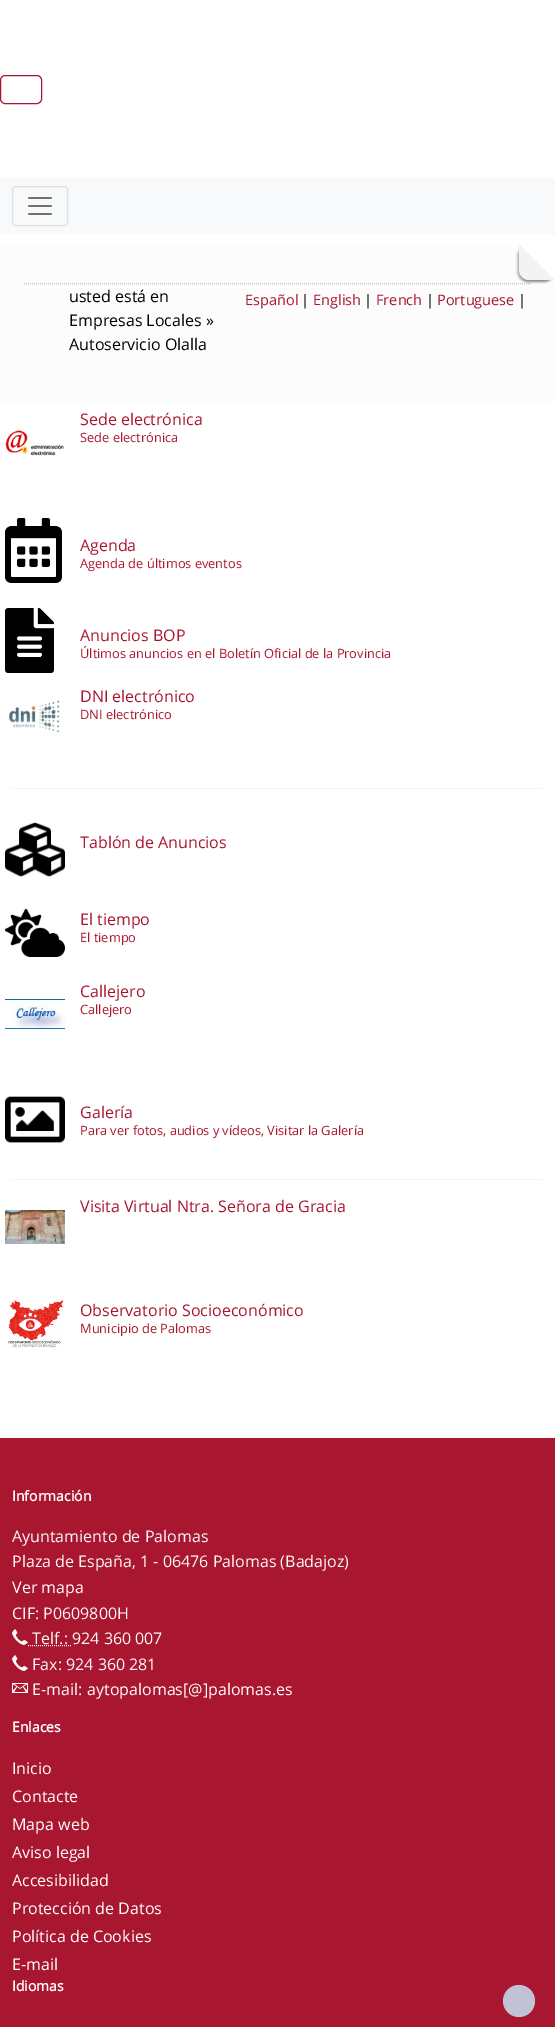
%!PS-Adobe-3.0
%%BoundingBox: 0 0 555 2027
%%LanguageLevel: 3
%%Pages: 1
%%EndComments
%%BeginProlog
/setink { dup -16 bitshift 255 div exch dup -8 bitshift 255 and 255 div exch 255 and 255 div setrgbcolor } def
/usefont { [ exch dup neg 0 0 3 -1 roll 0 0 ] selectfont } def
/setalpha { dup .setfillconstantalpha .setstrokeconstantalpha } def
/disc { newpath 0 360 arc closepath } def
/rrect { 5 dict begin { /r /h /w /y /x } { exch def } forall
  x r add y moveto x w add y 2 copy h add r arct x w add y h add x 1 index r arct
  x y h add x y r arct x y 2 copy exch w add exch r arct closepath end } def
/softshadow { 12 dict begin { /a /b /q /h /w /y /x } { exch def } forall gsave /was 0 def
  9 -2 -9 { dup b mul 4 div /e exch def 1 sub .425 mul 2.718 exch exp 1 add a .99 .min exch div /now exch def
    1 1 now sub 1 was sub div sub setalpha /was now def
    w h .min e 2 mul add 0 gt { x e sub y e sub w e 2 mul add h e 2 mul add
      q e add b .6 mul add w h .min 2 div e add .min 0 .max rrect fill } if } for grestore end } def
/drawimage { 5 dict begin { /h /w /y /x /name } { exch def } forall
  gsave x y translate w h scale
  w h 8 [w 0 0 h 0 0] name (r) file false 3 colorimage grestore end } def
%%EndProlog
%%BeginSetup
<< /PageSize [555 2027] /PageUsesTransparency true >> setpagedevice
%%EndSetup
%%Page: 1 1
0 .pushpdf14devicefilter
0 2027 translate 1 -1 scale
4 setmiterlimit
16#FFFFFF setink
0 0 555 2027 rectfill
16#A91630 setink
0.5 75.5 41 28 4.5 rrect stroke
16#F8F9FA setink
0 178 555 56 rectfill
16#DFE0E1 setink
12.5 186.5 55 39 3.5 rrect stroke
(img1.raw) 28 197 24 18 drawimage
16#FCFCFC setink
10 244 moveto 555 244 lineto 555 394 lineto 555 399.5 550.5 404 545 404 curveto 10 404 lineto 4.5 404 0 399.5 0 394 curveto 0 254 lineto 0 248.5 4.5 244 10 244 curveto closepath fill
16#C0C0C0 setink
[1 1] 0 setdash
24 283.5 moveto 531 283.5 lineto stroke
16#000000 setink
517 246 36 36 10 1 0.2 softshadow
519 246 36 36 10 1 0.3 softshadow
16#F3F3F3 setink
519 244 moveto 555 244 lineto 555 280 lineto 529 280 lineto 523.5 280 519 275.5 519 270 curveto closepath fill
16#FFFFFF setink
519 244 moveto 537 262 lineto 555 244 lineto closepath fill
555 244 moveto 537 262 lineto 555 280 lineto closepath fill
/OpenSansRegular-Regular 16 usefont
16#000000 setink
[
    [(usted está en) 69 302]
    [(Empresas Locales ») 69 326]
    [(Autoservicio Olalla) 69 350]
] { aload pop moveto show } forall
/OpenSansRegular-Regular 14.5 usefont
16#A91630 setink
245 305 moveto (Español) show
16#000000 setink
301 305 moveto (|) show
16#A91630 setink
313 305 moveto (English) show
16#000000 setink
364 305 moveto (|) show
16#A91630 setink
376 305 moveto (French) show
16#000000 setink
426 305 moveto (|) show
16#A91630 setink
437 305 moveto (Portuguese) show
16#000000 setink
518 305 moveto (|) show
(img2.raw) 5 430 59 26 drawimage
/OpenSansRegular-Regular 16 usefont
16#A91630 setink
80 425 moveto (Sede electrónica) show
/OpenSansRegular-Regular 12.8 usefont
80 442 moveto (Sede electrónica) show
(img3.raw) 5 518 57 65 drawimage
/OpenSansRegular-Regular 16 usefont
80 551 moveto (Agenda) show
/OpenSansRegular-Regular 12.8 usefont
80 568 moveto (Agenda de últimos eventos) show
(img4.raw) 5 608 49 65 drawimage
/OpenSansRegular-Regular 16 usefont
80 641 moveto (Anuncios BOP) show
/OpenSansRegular-Regular 12.8 usefont
80 658 moveto (Últimos anuncios en el Boletín Oficial de la Provincia) show
(img5.raw) 8 700 52 33 drawimage
/OpenSansRegular-Regular 16 usefont
80 702 moveto (DNI electrónico) show
/OpenSansRegular-Regular 12.8 usefont
80 719 moveto (DNI electrónico) show
16#F5F5F5 setink
12 788 531 1 rectfill
(img6.raw) 5 822 60 55 drawimage
/OpenSansRegular-Regular 16 usefont
16#A91630 setink
80 848 moveto (Tablón de Anuncios) show
(img7.raw) 5 909 60 48 drawimage
80 925 moveto (El tiempo) show
/OpenSansRegular-Regular 12.8 usefont
80 942 moveto (El tiempo) show
(img8.raw) 5 999 60 30 drawimage
/OpenSansRegular-Regular 16 usefont
80 997 moveto (Callejero) show
/OpenSansRegular-Regular 12.8 usefont
80 1014 moveto (Callejero) show
(img9.raw) 5 1096 60 47 drawimage
/OpenSansRegular-Regular 16 usefont
80 1118 moveto (Galería) show
/OpenSansRegular-Regular 12.8 usefont
80 1135 moveto (Para ver fotos, audios y vídeos, Visitar la Galería) show
16#F5F5F5 setink
12 1179 531 1 rectfill
/OpenSansRegular-Regular 16 usefont
16#A91630 setink
80 1212 moveto (Visita Virtual Ntra. Señora de Gracia) show
(img10.raw) 5 1210 60 34 drawimage
(img11.raw) 8 1300 56 48 drawimage
80 1316 moveto (Observatorio Socioeconómico) show
/OpenSansRegular-Regular 12.8 usefont
80 1333 moveto (Municipio de Palomas) show
0 1438 555 589 rectfill
/OpenSansRegular-Bold 14 usefont
16#FFFFFF setink
12 1501 moveto (Información) show
/OpenSansRegular-Regular 16 usefont
16#F8F8F8 setink
12 1542 moveto (Ayuntamiento de Palomas) show
12 1567 moveto (Plaza de España, 1 - 06476 Palomas \(Badajoz\)) show
16#FFFFFF setink
12 1593 moveto (Ver mapa) show
16#F8F8F8 setink
12 1619 moveto (CIF: P0609800H) show
(img12.raw) 12 1629 16 16 drawimage
32 1644 moveto (Telf.: 924 360 007) show
28 1645.5 moveto 72 1645.5 lineto stroke
(img12.raw) 12 1655 16 16 drawimage
32 1670 moveto (Fax: 924 360 281) show
(img13.raw) 12 1683 16 10 drawimage
32 1695 moveto (E-mail:) show
16#FFFFFF setink
87 1695 moveto (aytopalomas[@]palomas.es) show
/OpenSansRegular-Bold 14 usefont
12 1732 moveto (Enlaces) show
/OpenSansRegular-Regular 16 usefont
[
    [(Inicio) 12 1774]
    [(Contacte) 12 1802]
    [(Mapa web) 12 1830]
    [(Aviso legal) 12 1858]
    [(Accesibilidad) 12 1886]
    [(Protección de Datos) 12 1914]
    [(Política de Cookies) 12 1942]
    [(E-mail) 12 1970]
] { aload pop moveto show } forall
/OpenSansRegular-Bold 14 usefont
12 1991 moveto (Idiomas) show
16#C2C2D6 setink
519 2001 16 disc fill
.poppdf14devicefilter showpage
%%EOF
